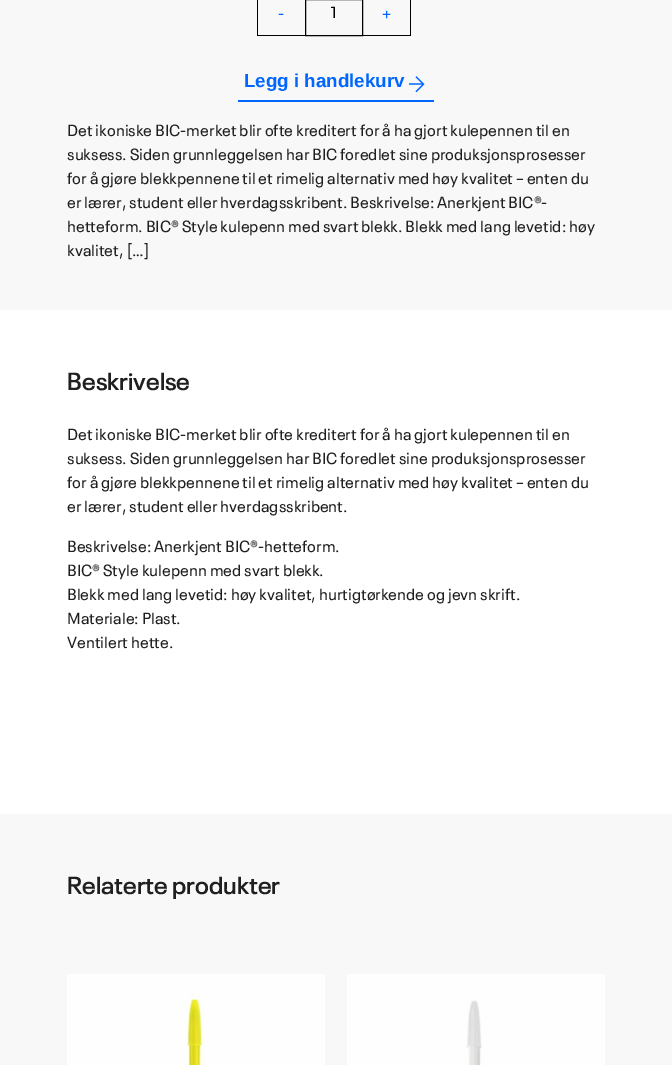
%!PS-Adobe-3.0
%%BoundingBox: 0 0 672 1065
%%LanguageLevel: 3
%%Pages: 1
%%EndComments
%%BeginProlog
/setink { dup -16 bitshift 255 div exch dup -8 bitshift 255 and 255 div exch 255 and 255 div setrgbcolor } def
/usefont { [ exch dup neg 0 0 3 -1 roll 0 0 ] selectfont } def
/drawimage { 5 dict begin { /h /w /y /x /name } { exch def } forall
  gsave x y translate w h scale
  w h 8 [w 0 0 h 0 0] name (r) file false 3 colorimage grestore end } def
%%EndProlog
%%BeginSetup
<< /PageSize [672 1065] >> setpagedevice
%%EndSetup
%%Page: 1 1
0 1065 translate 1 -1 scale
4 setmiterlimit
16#FFFFFF setink
0 0 672 1065 rectfill
[
    [0 0 672 310 16#F8F8F8]
    [257 35 48 1 16#000000]
    [257 0 1 36 16#000000]
] { aload pop setink rectfill } forall
/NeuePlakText-Regular 16 usefont
16#0066FF setink
278 19 moveto (-) show
16#000000 setink
305.5 -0.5 57 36 rectstroke
329 18 moveto (1) show
410 0 1 36 rectfill
363 35 48 1 rectfill
16#0066FF setink
382 19 moveto (+) show
238 100 196 2 rectfill
/LiberationSans-Bold 18.75 usefont
244 87 moveto (Legg i handlekurv) show
(img1.raw) 409 76 16 17 drawimage
/NeuePlakText-Regular 16 usefont
16#1F1F1F setink
[
    [(Det ikoniske BIC-merket blir ofte kreditert for å ha gjort kulepennen til en) 67 136]
    [(suksess. Siden grunnleggelsen har BIC foredlet sine produksjonsprosesser) 67 160]
    [(for å gjøre blekkpennene til et rimelig alternativ med høy kvalitet – enten du) 67 184]
    [(er lærer, student eller hverdagsskribent. Beskrivelse: Anerkjent BIC®-) 67 208]
    [(hetteform. BIC® Style kulepenn med svart blekk. Blekk med lang levetid: høy) 67 232]
    [(kvalitet, […]) 67 256]
] { aload pop moveto show } forall
/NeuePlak-SemiBold 24.5 usefont
67 390 moveto (Beskrivelse) show
/NeuePlakText-Regular 16 usefont
[
    [(Det ikoniske BIC-merket blir ofte kreditert for å ha gjort kulepennen til en) 67 440]
    [(suksess. Siden grunnleggelsen har BIC foredlet sine produksjonsprosesser) 67 464]
    [(for å gjøre blekkpennene til et rimelig alternativ med høy kvalitet – enten du) 67 488]
    [(er lærer, student eller hverdagsskribent.) 67 512]
    [(Beskrivelse: Anerkjent BIC®-hetteform.) 67 552]
    [(BIC® Style kulepenn med svart blekk.) 67 576]
    [(Blekk med lang levetid: høy kvalitet, hurtigtørkende og jevn skrift.) 67 600]
    [(Materiale: Plast.) 67 624]
    [(Ventilert hette.) 67 648]
] { aload pop moveto show } forall
16#F8F8F8 setink
0 814 672 251 rectfill
/NeuePlak-SemiBold 24.5 usefont
16#1F1F1F setink
67 894 moveto (Relaterte produkter) show
(img2.raw) 67 974 258 91 drawimage
(img3.raw) 347 974 258 91 drawimage
showpage
%%EOF
